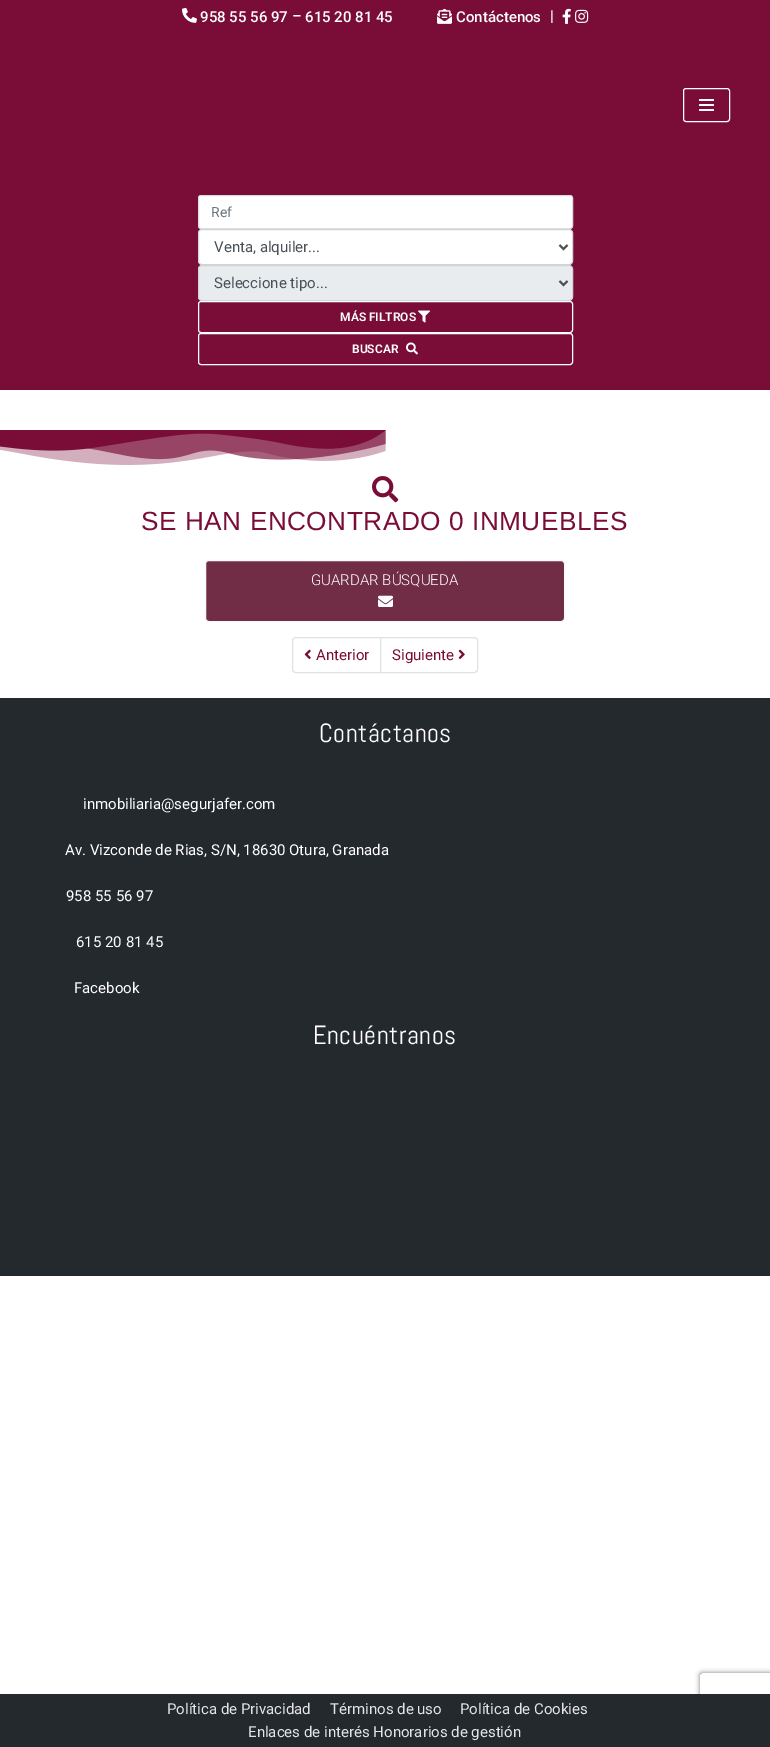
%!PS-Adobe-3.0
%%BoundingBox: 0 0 770 1747
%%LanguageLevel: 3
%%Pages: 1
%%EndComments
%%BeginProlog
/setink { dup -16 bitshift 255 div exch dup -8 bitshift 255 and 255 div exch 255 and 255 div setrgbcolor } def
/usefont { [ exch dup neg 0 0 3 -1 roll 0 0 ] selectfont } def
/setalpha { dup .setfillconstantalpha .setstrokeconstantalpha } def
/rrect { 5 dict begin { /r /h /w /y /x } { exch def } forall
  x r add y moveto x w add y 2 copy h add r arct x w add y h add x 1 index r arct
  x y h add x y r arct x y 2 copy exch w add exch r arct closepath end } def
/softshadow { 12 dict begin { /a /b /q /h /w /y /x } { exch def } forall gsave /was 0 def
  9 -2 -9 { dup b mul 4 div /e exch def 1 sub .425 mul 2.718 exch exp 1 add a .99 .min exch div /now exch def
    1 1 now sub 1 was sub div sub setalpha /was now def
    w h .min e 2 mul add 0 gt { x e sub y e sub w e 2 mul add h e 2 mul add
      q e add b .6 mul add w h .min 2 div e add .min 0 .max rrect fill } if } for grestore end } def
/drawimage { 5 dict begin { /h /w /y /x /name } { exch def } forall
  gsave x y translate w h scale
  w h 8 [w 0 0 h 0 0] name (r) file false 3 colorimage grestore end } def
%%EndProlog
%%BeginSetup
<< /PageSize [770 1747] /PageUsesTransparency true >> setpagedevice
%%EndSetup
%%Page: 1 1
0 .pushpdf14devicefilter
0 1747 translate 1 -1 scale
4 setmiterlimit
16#FFFFFF setink
0 0 770 1747 rectfill
16#7A0D37 setink
0 0 770 177 rectfill
(img1.raw) 182 7 15 16 drawimage
/Roboto-Medium 15 usefont
16#FFFFFF setink
[
    [(958 55 56 97) 200 22]
    [(–) 292 21]
    [(615 20 81 45) 305 22]
] { aload pop moveto show } forall
(img2.raw) 437 8 15 16 drawimage
456 22 moveto (Contáctenos) show
550 21 moveto (|) show
(img3.raw) 562 8 9 16 drawimage
(img4.raw) 575 9 14 14 drawimage
683.5 88.5 46 33 2.5 rrect stroke
699 99 15 2 1 rrect fill
699 104 15 2 1 rrect fill
699 109 15 2 1 rrect fill
16#7A0D37 setink
0 177 770 213 rectfill
16#FFFFFF setink
198.5 195.5 374 33 2.5 rrect gsave fill grestore
16#DDDDDD setink
stroke
/Roboto-Regular 14 usefont
16#6C757D setink
211 217 moveto (Ref) show
16#FFFFFF setink
198.5 229.5 374 35 3.5 rrect gsave fill grestore
16#CED4DA setink
stroke
16#495057 setink
2 setlinewidth
559.5 245 moveto 563.5 249 lineto 567.5 245 lineto stroke
/Roboto-Regular 15 usefont
214 252 moveto (Venta, alquiler...) show
16#E9ECEF setink
198.5 265.5 374 35 3.5 rrect gsave fill grestore
16#CED4DA setink
1 setlinewidth
stroke
16#495057 setink
2 setlinewidth
559.5 281 moveto 563.5 285 lineto 567.5 281 lineto stroke
214 288 moveto (Seleccione tipo...) show
16#FFFFFF setink
1 setlinewidth
198.5 301.5 374 31 2.5 rrect stroke
/Roboto-SemiBold 12 usefont
340 321 moveto (MÁS FILTROS) show
(img5.raw) 418 310 12 13 drawimage
198.5 333.5 374 31 2.5 rrect stroke
352 353 moveto (BUSCAR) show
(img6.raw) 406 342 12 13 drawimage
(img7.raw) 0 430 386 35 drawimage
(img8.raw) 372 476 27 27 drawimage
/LiberationSans-Regular 26.25 usefont
16#7A0D37 setink
141 530 moveto 0.5 0 (SE HAN ENCONTRADO 0 INMUEBLES) ashow
16#712D46 setink
205.5 560.5 359 61 3.5 rrect gsave fill grestore
16#F8F9FA setink
stroke
/Roboto-Light 15 usefont
16#FFFFFF setink
311 585 moveto (GUARDAR BÚSQUEDA) show
(img9.raw) 378 595 15 12 drawimage
16#DEE2E6 setink
296 637.5 moveto 380.5 637.5 lineto 380.5 672.5 lineto 296 672.5 lineto 294 672.5 292.5 671 292.5 669 curveto 292.5 641 lineto 292.5 639 294 637.5 296 637.5 curveto closepath stroke
(img10.raw) 304 649 7 10 drawimage
/Roboto-Regular 15 usefont
16#7A0D37 setink
316 660 moveto (Anterior) show
16#FFFFFF setink
380.5 637.5 moveto 474 637.5 lineto 476 637.5 477.5 639 477.5 641 curveto 477.5 669 lineto 477.5 671 476 672.5 474 672.5 curveto 380.5 672.5 lineto closepath gsave fill grestore
16#DEE2E6 setink
stroke
16#7A0D37 setink
392 660 moveto (Siguiente) show
(img11.raw) 458 649 7 10 drawimage
16#24292E setink
0 698 770 578 rectfill
/Abel-Regular 26.25 usefont
16#FFFFFF setink
319 742 moveto 0.5 0 (Contáctanos) ashow
/Roboto-Regular 15 usefont
[
    [(inmobiliaria@segurjafer.com) 83 809]
    [(Av. Vizconde de Rias, S/N, 18630 Otura, Granada) 65 855]
    [(958 55 56 97) 66 901]
    [(615 20 81 45) 76 947]
    [(Facebook) 74 993]
] { aload pop moveto show } forall
/Abel-Regular 26.25 usefont
313 1044 moveto 0.5 0 (Encuéntranos) ashow
gsave
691 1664 moveto 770 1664 lineto 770 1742 lineto 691 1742 lineto closepath 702 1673 moveto 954 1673 lineto 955 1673 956 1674 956 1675 curveto 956 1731 lineto 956 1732 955 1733 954 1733 curveto 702 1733 lineto 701 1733 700 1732 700 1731 curveto 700 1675 lineto 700 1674 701 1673 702 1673 curveto closepath eoclip newpath
16#808080 setink
700 1673 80 60 2 2.5 1 softshadow
grestore
16#24292E setink
0 1694 770 53 rectfill
/Roboto-Regular 15 usefont
16#E4E4E4 setink
[
    [(Política de Privacidad) 167 1714]
    [(Términos de uso) 330 1714]
    [(Política de Cookies) 460 1714]
    [(Enlaces de interés Honorarios de gestión) 248 1737]
] { aload pop moveto show } forall
.poppdf14devicefilter showpage
%%EOF
